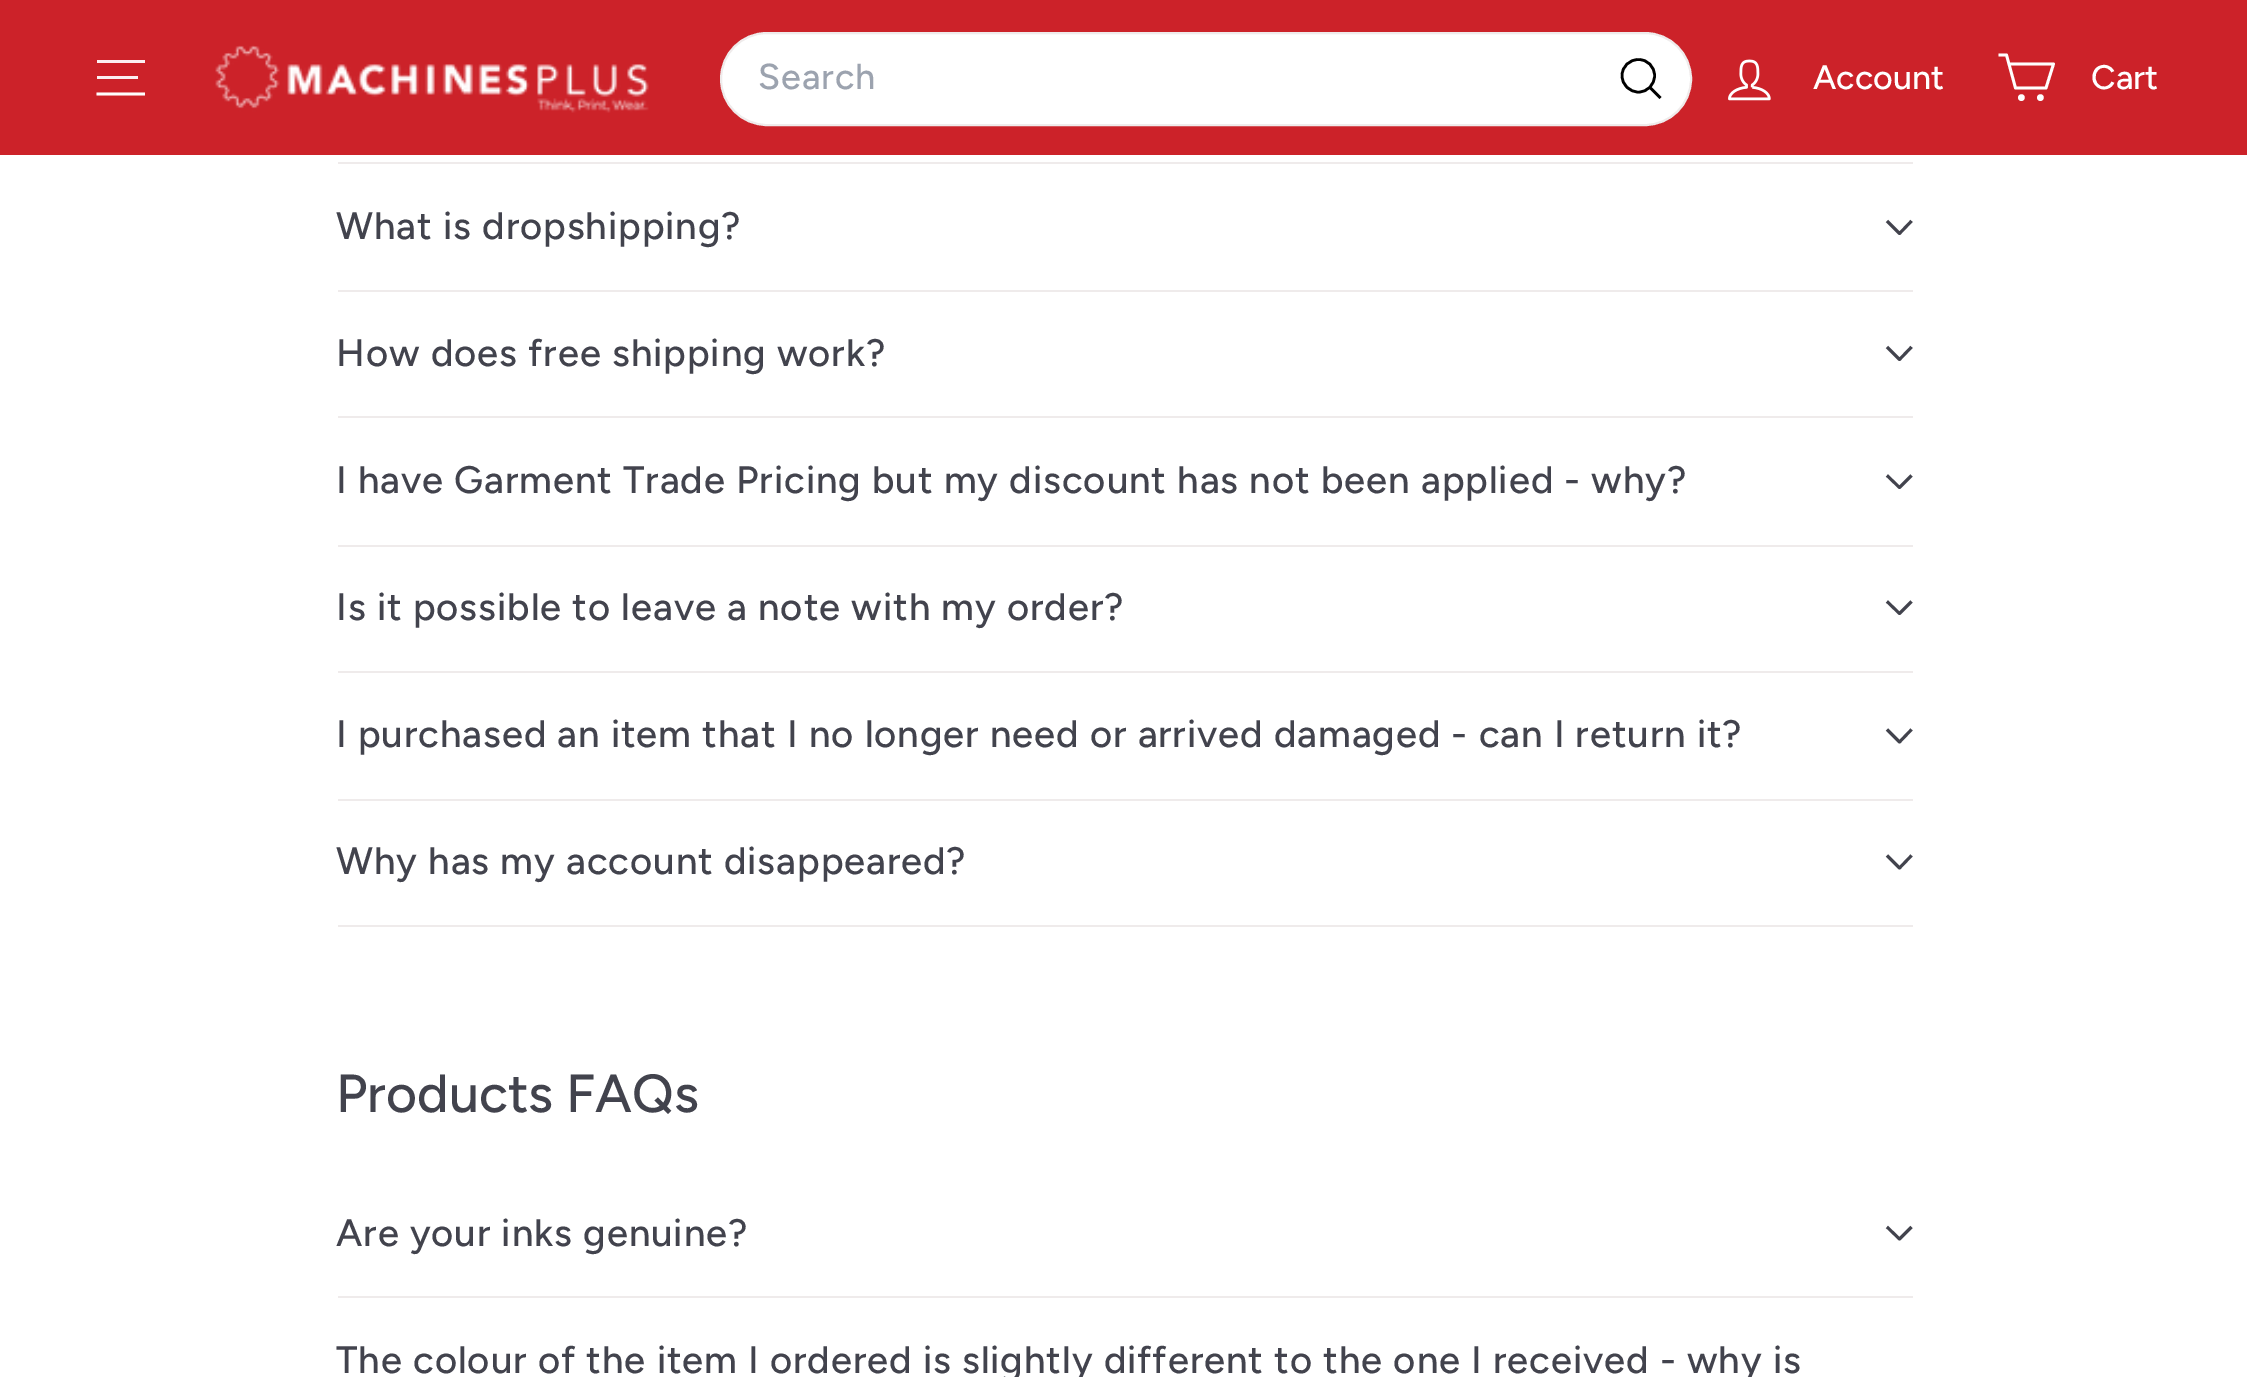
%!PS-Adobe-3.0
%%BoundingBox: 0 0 2247 1377
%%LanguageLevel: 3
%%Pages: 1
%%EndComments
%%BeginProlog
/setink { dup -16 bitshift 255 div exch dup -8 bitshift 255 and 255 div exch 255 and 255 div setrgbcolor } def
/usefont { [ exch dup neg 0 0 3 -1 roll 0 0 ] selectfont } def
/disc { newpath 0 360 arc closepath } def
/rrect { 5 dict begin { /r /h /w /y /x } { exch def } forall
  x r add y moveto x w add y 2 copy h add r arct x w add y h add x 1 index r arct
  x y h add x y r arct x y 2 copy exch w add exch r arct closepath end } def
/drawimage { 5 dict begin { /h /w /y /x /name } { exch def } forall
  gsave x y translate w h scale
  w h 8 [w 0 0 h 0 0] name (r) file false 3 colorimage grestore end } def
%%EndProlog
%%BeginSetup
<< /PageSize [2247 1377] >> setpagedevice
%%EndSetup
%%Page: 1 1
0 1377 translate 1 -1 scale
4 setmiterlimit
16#FFFFFF setink
0 0 2247 1377 rectfill
[
    [0 0 2247 155 16#CC2229]
    [97 60 48 3 16#FCF0F1]
    [97 76 41 3 16#FCF0F1]
] { aload pop setink rectfill } forall
16#FFFFFF setink
2.8 setlinewidth
1 setlinejoin
96.5 94 moveto 145 94 lineto stroke
(img1.raw) 215 45 434 68 drawimage
721 33 970 92 46 rrect gsave fill grestore
16#EFEBEB setink
2 setlinewidth
0 setlinejoin
stroke
/Figtree-Medium 36 usefont
16#9CA3AF setink
758 89 moveto 1 0 (Search) ashow
16#000000 setink
2.6 setlinewidth
1 setlinejoin
1654.5 75.5 moveto 1654.5 85 1647.5 92 1638.5 92 curveto 1629.5 92 1622 85 1622 75.5 curveto 1622 66.5 1629.5 59.5 1638.5 59.5 curveto 1647.5 59.5 1654.5 66.5 1654.5 75.5 curveto 1660.5 98 moveto 1650 87.5 lineto stroke
(img2.raw) 1728 59 43 42 drawimage
/Figtree-Medium 34 usefont
16#FFFFFF setink
1813 89 moveto (Account) show
2.8 setlinewidth
2009 64 moveto 2053.5 64 lineto 2046 88 lineto 2015.5 88 lineto 2006.5 55 lineto 1998.5 55 lineto stroke
2021.4 97.6 1.9 disc gsave fill grestore
0 setlinejoin
stroke
2040.4 97.6 1.9 disc gsave fill grestore
stroke
2091 89 moveto (Cart) show
16#EFEBEB setink
338 162 1575 2 rectfill
338 290 1575 2 rectfill
/Figtree-Medium 38.25 usefont
16#42434D setink
336 239 moveto 0.95 0 (What is dropshipping?) ashow
2.9 setlinewidth
1 setlinejoin
1887 221 moveto 1899.5 233.5 lineto 1911.5 221 lineto stroke
16#EFEBEB setink
338 416 1575 2 rectfill
16#42434D setink
336 366 moveto 0.95 0 (How does free shipping work?) ashow
1887 347 moveto 1899.5 359.5 lineto 1911.5 347 lineto stroke
16#EFEBEB setink
338 545 1575 2 rectfill
16#42434D setink
336 493 moveto 0.95 0 (I have Garment Trade Pricing but my discount has not been applied - why?) ashow
1887 475.5 moveto 1899.5 487.5 lineto 1911.5 475.5 lineto stroke
16#EFEBEB setink
338 671 1575 2 rectfill
16#42434D setink
336 620 moveto 0.95 0 (Is it possible to leave a note with my order?) ashow
1887 601.5 moveto 1899.5 613.5 lineto 1911.5 601.5 lineto stroke
16#EFEBEB setink
338 799 1575 2 rectfill
16#42434D setink
336 747 moveto 0.95 0 (I purchased an item that I no longer need or arrived damaged - can I return it?) ashow
1887 729.5 moveto 1899.5 742 lineto 1911.5 729.5 lineto stroke
16#EFEBEB setink
338 925 1575 2 rectfill
16#42434D setink
336 874 moveto 0.95 0 (Why has my account disappeared?) ashow
1887 855.5 moveto 1899.5 868 lineto 1911.5 855.5 lineto stroke
/Figtree-Medium 53.5 usefont
336 1112 moveto (Products FAQs) show
16#EFEBEB setink
338 1296 1575 2 rectfill
/Figtree-Medium 38.25 usefont
16#42434D setink
336 1246 moveto 0.95 0 (Are your inks genuine?) ashow
1887 1227 moveto 1899.5 1239 lineto 1911.5 1227 lineto stroke
336 1373 moveto 0.95 0 (The colour of the item I ordered is slightly different to the one I received - why is) ashow
showpage
%%EOF
